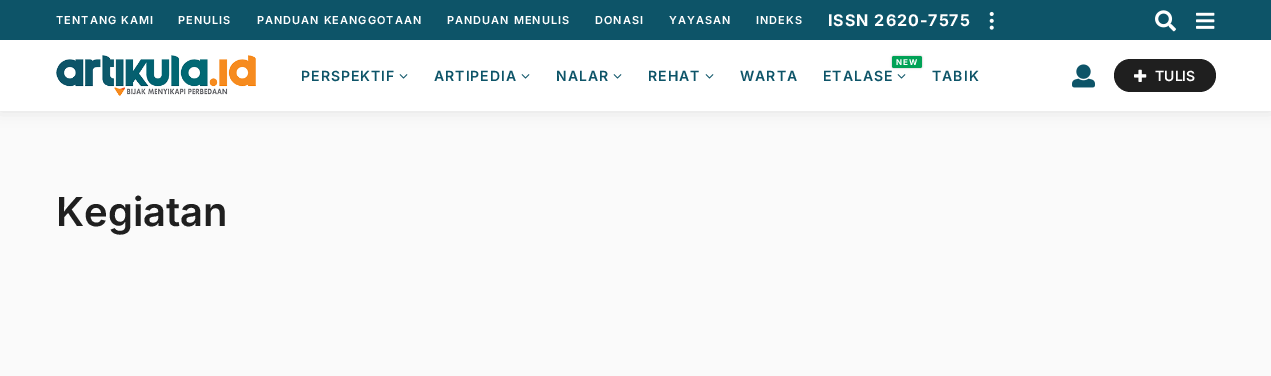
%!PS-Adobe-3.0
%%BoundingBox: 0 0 1271 376
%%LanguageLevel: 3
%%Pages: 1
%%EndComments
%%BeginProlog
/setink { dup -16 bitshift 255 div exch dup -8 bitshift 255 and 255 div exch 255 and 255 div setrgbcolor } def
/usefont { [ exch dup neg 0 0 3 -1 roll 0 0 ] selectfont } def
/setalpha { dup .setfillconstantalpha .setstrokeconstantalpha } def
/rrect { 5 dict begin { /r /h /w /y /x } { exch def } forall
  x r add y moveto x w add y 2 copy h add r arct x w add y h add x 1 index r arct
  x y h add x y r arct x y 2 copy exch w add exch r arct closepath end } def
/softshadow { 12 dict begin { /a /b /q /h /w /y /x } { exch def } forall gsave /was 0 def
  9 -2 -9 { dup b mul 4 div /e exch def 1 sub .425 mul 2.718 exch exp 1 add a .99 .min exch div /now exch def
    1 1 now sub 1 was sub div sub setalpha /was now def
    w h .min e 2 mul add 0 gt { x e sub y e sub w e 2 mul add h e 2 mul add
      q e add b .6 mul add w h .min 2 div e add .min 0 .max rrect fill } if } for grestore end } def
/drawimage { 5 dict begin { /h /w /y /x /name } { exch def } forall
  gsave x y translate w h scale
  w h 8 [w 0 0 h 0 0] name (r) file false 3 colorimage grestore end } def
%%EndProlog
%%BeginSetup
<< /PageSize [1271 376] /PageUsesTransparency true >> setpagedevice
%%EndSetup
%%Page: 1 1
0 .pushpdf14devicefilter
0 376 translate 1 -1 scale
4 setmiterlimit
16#FAFAFA setink
0 0 1271 376 rectfill
16#000000 setink
0 40 1271 71 0 7.5 0.1 softshadow
16#0D5468 setink
0 0 1271 40 rectfill
/Inter-SemiBold 11 usefont
16#FFFFFF setink
56 24 moveto 1 0 (TENTANG KAMI) ashow
178 24 moveto 1 0 (PENULIS) ashow
257 24 moveto 1 0 (PANDUAN KEANGGOTAAN) ashow
447 24 moveto 1 0 (PANDUAN MENULIS) ashow
595 24 moveto 1 0 (DONASI) ashow
669 24 moveto 1 0 (YAYASAN) ashow
756 24 moveto 1 0 (INDEKS) ashow
/Inter-Bold 16 usefont
828 26 moveto 1 0 (ISSN 2620-7575) ashow
(img1.raw) 989 11 5 19 drawimage
(img2.raw) 1155 10 21 22 drawimage
(img3.raw) 1196 12 19 17 drawimage
0 40 1271 71 rectfill
(img4.raw) 56 55 200 41 drawimage
/Inter-SemiBold 14 usefont
16#0D5468 setink
301 81 moveto 1 0 (PERSPEKTIF) ashow
(img5.raw) 399 74 9 5 drawimage
434 81 moveto 1 0 (ARTIPEDIA) ashow
(img5.raw) 521 74 9 5 drawimage
556 81 moveto 1 0 (NALAR) ashow
(img5.raw) 613 74 9 5 drawimage
648 81 moveto 1 0 (REHAT) ashow
(img5.raw) 705 74 9 5 drawimage
740 81 moveto 1 0 (WARTA) ashow
16#000000 setink
892 56 30 12 2 1 0.3 softshadow
16#00A256 setink
892 56 30 12 2 rrect fill
/Inter-Bold 8 usefont
16#FFFFFF setink
896 65 moveto 1 0 (NEW) ashow
/Inter-SemiBold 14 usefont
16#0D5468 setink
823 81 moveto 1 0 (ETALASE) ashow
(img5.raw) 897 74 9 5 drawimage
932 81 moveto 1 0 (TABIK) ashow
(img6.raw) 1072 64 23 24 drawimage
16#1F1F1F setink
1114 59 102 33 16.5 rrect fill
(img7.raw) 1134 69 13 13 drawimage
16#FFFFFF setink
1155 81 moveto (TULIS) show
/Inter-SemiBold 40 usefont
16#1F1F1F setink
56 226 moveto (Kegiatan) show
.poppdf14devicefilter showpage
%%EOF
